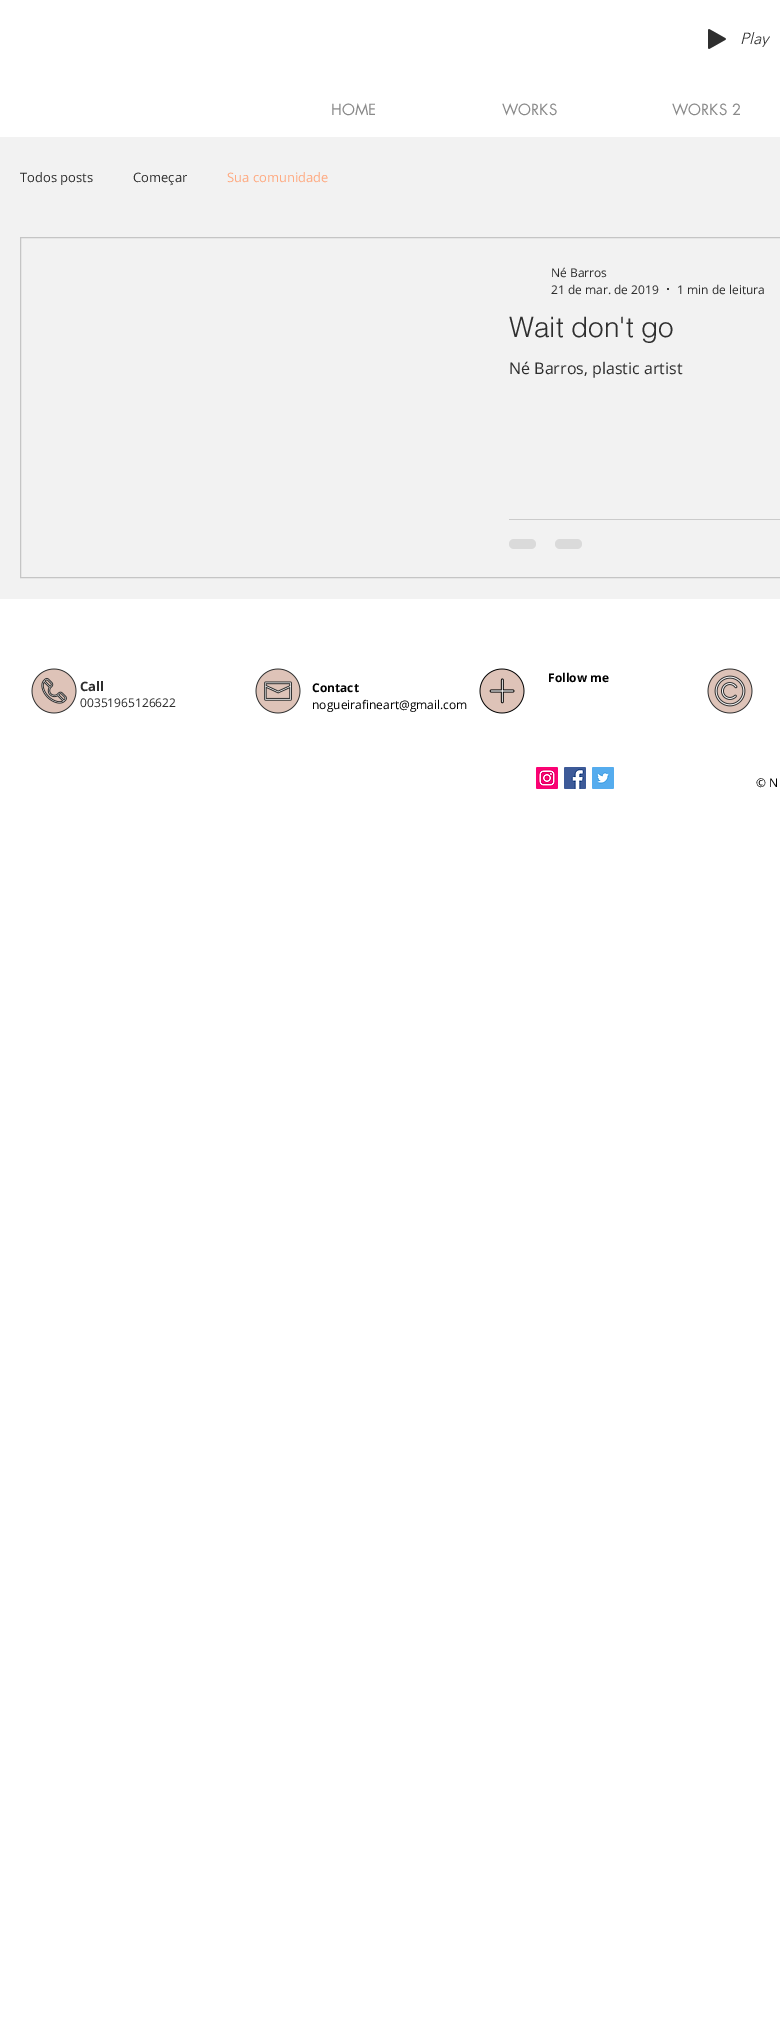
%!PS-Adobe-3.0
%%BoundingBox: 0 0 780 2038
%%LanguageLevel: 3
%%Pages: 1
%%EndComments
%%BeginProlog
/setink { dup -16 bitshift 255 div exch dup -8 bitshift 255 and 255 div exch 255 and 255 div setrgbcolor } def
/usefont { [ exch dup neg 0 0 3 -1 roll 0 0 ] selectfont } def
/disc { newpath 0 360 arc closepath } def
/rrect { 5 dict begin { /r /h /w /y /x } { exch def } forall
  x r add y moveto x w add y 2 copy h add r arct x w add y h add x 1 index r arct
  x y h add x y r arct x y 2 copy exch w add exch r arct closepath end } def
/drawimage { 5 dict begin { /h /w /y /x /name } { exch def } forall
  gsave x y translate w h scale
  w h 8 [w 0 0 h 0 0] name (r) file false 3 colorimage grestore end } def
%%EndProlog
%%BeginSetup
<< /PageSize [780 2038] >> setpagedevice
%%EndSetup
%%Page: 1 1
0 2038 translate 1 -1 scale
4 setmiterlimit
16#FFFFFF setink
0 0 780 2038 rectfill
(img1.raw) 708 29 18 20 drawimage
gsave
740 31 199 16 rectclip
/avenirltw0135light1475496-LightItalic 16 usefont
16#2E2E2E setink
740 44 moveto (Play) show
grestore
/futura-Regular 15 usefont
16#898989 setink
[
    [(HOME) 331 115]
    [(WORKS) 502 115]
    [(WORKS 2) 672 115]
] { aload pop moveto show } forall
16#F2F2F2 setink
0 137 780 462 rectfill
/OpenSans-Regular 13 usefont
16#2E2E2E setink
20 182 moveto (Todos posts) show
133 182 moveto (Começar) show
16#FFAA81 setink
227 182 moveto (Sua comunidade) show
16#C5C5C5 setink
20.5 237.5 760 340 rectstroke
/OpenSans-Regular 12 usefont
16#2E2E2E setink
551 277 moveto (Né Barros) show
551 294 moveto (21 de mar. de 2019) show
668 289 1 disc fill
677 294 moveto (1 min de leitura) show
/helvetica-Light 28 usefont
509 337 moveto (Wait don't go) show
/OpenSans-Regular 16 usefont
509 374 moveto (Né Barros, plastic artist) show
16#CBCBCB setink
509 519 271 1 rectfill
16#DADADA setink
509 539 27 10 5 rrect fill
555 539 27 10 5 rrect fill
(img2.raw) 31 668 46 46 drawimage
(img3.raw) 255 668 46 46 drawimage
(img4.raw) 479 668 46 46 drawimage
/OpenSans-Bold 12 usefont
16#000000 setink
548 682 moveto (Follow me) show
(img5.raw) 707 668 46 46 drawimage
/OpenSans-Bold 13 usefont
16#2E2E2E setink
80 691 moveto (Call) show
/OpenSans-Regular 12 usefont
80 707 moveto (00351965126622) show
/OpenSans-Bold 12 usefont
16#000000 setink
312 692 moveto (Contact) show
/OpenSans-Regular 12 usefont
312 709 moveto (nogueirafineart@gmail.com) show
(img6.raw) 536 767 22 22 drawimage
(img7.raw) 564 767 22 22 drawimage
(img8.raw) 592 767 22 22 drawimage
756 787 moveto (© N) show
showpage
%%EOF
